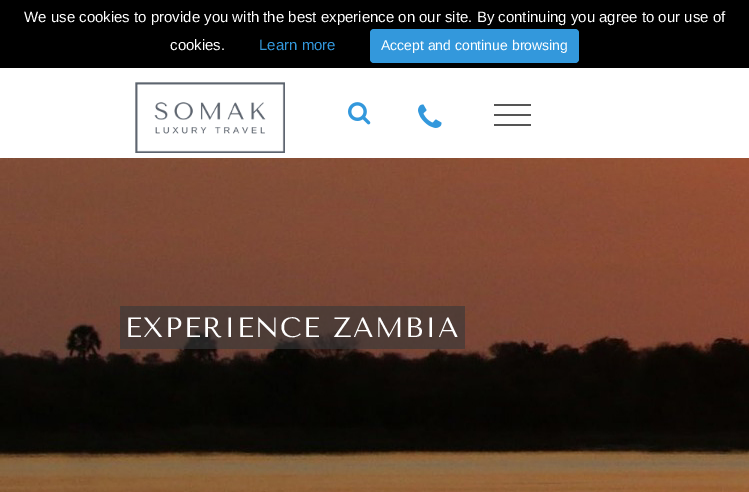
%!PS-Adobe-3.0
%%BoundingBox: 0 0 749 492
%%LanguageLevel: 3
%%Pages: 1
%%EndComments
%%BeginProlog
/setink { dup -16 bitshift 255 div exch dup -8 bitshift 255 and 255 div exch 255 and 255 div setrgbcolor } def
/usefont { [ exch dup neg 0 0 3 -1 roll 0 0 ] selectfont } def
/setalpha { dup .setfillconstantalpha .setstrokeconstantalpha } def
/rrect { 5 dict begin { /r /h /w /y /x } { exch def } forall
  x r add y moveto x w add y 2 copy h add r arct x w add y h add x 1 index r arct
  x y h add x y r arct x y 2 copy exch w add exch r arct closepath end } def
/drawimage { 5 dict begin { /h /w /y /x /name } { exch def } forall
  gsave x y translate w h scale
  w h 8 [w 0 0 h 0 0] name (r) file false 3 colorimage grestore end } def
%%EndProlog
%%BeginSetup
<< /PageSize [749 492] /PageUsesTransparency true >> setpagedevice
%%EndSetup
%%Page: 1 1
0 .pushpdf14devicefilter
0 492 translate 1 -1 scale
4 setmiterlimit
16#FFFFFF setink
0 0 749 492 rectfill
16#000000 setink
0 0 749 68 rectfill
/LiberationSans-Regular 15 usefont
16#FFFFFF setink
24 22 moveto (We use cookies to provide you with the best experience on our site. By continuing you agree to our use of) show
170 50 moveto (cookies.) show
16#3398DC setink
259 50 moveto (Learn more) show
370 29 209 34 4 rrect fill
/LiberationSans-Regular 14 usefont
16#FFFFFF setink
381 50 moveto (Accept and continue browsing) show
(img1.raw) 135 82 150 71 drawimage
(img2.raw) 348 102 23 23 drawimage
(img3.raw) 418 104 24 24 drawimage
[
    [494 104 37 2 16#555555]
    [494 114 37 2 16#555555]
    [494 124 37 2 16#555555]
] { aload pop setink rectfill } forall
(img4.raw) 0 158 749 334 drawimage
0.6 setalpha
16#353738 setink
120 306 345 43 rectfill
/TenorSans-Regular 28 usefont
1 setalpha
16#FFFFFF setink
125 337 moveto 1.5 0 (EXPERIENCE ZAMBIA) ashow
.poppdf14devicefilter showpage
%%EOF
